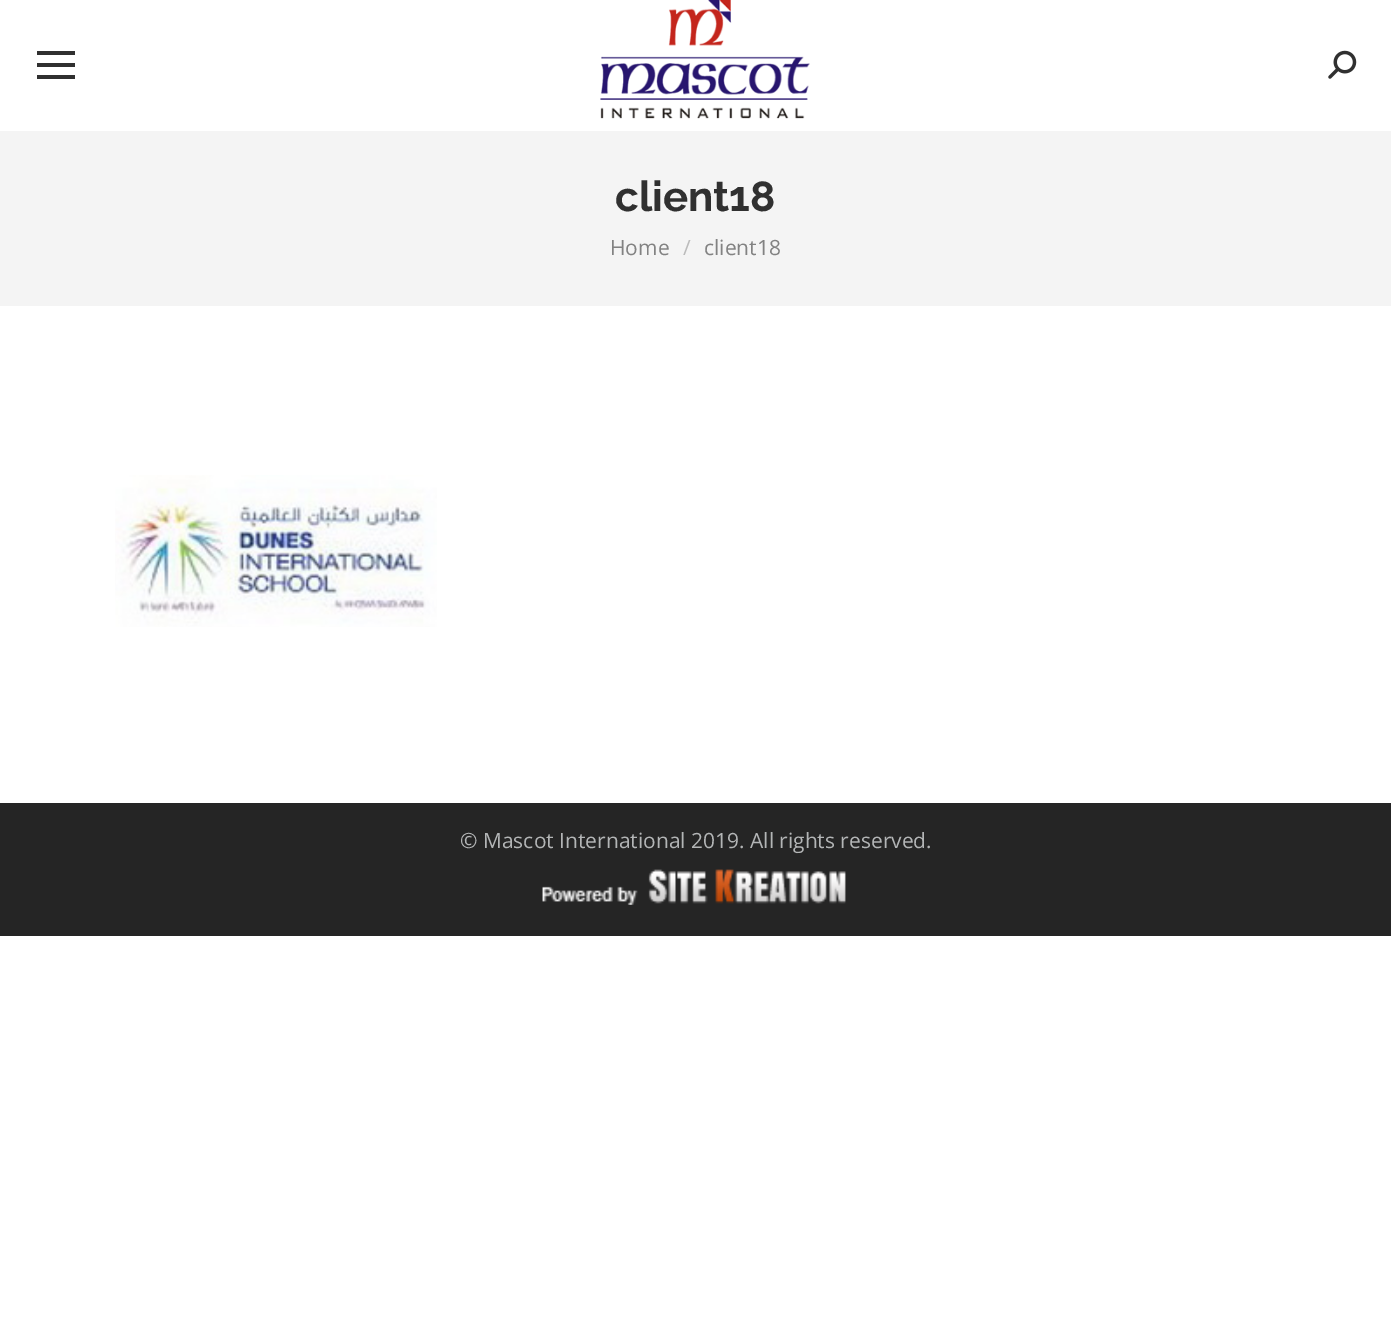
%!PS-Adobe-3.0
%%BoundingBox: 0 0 1391 1324
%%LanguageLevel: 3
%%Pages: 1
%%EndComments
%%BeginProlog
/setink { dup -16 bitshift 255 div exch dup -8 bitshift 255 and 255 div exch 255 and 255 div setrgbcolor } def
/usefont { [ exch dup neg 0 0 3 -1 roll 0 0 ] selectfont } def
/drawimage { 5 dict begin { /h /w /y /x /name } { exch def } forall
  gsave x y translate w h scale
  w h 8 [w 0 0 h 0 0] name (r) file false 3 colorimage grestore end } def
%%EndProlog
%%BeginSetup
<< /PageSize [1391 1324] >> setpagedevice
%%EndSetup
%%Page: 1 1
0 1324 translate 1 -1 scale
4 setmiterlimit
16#FFFFFF setink
0 0 1391 1324 rectfill
[
    [37 51 38 4 16#303030]
    [37 63 38 4 16#303030]
    [37 75 38 4 16#303030]
] { aload pop setink rectfill } forall
(img1.raw) 600 0 210 119 drawimage
(img2.raw) 1328 50 29 29 drawimage
16#F4F4F4 setink
0 131 1391 175 rectfill
/Raleway-Bold 42 usefont
16#303030 setink
615 211 moveto (client18) show
/OpenSans-Regular 21 usefont
16#828282 setink
610 255 moveto (Home) show
16#BBBBBB setink
683 255 moveto (/) show
16#828282 setink
704 255 moveto (client18) show
(img3.raw) 115 475 322 152 drawimage
16#252525 setink
0 803 1391 133 rectfill
16#B3B5B6 setink
460 848 moveto (© Mascot International 2019. All rights reserved.) show
(img4.raw) 542 869 304 36 drawimage
showpage
%%EOF
